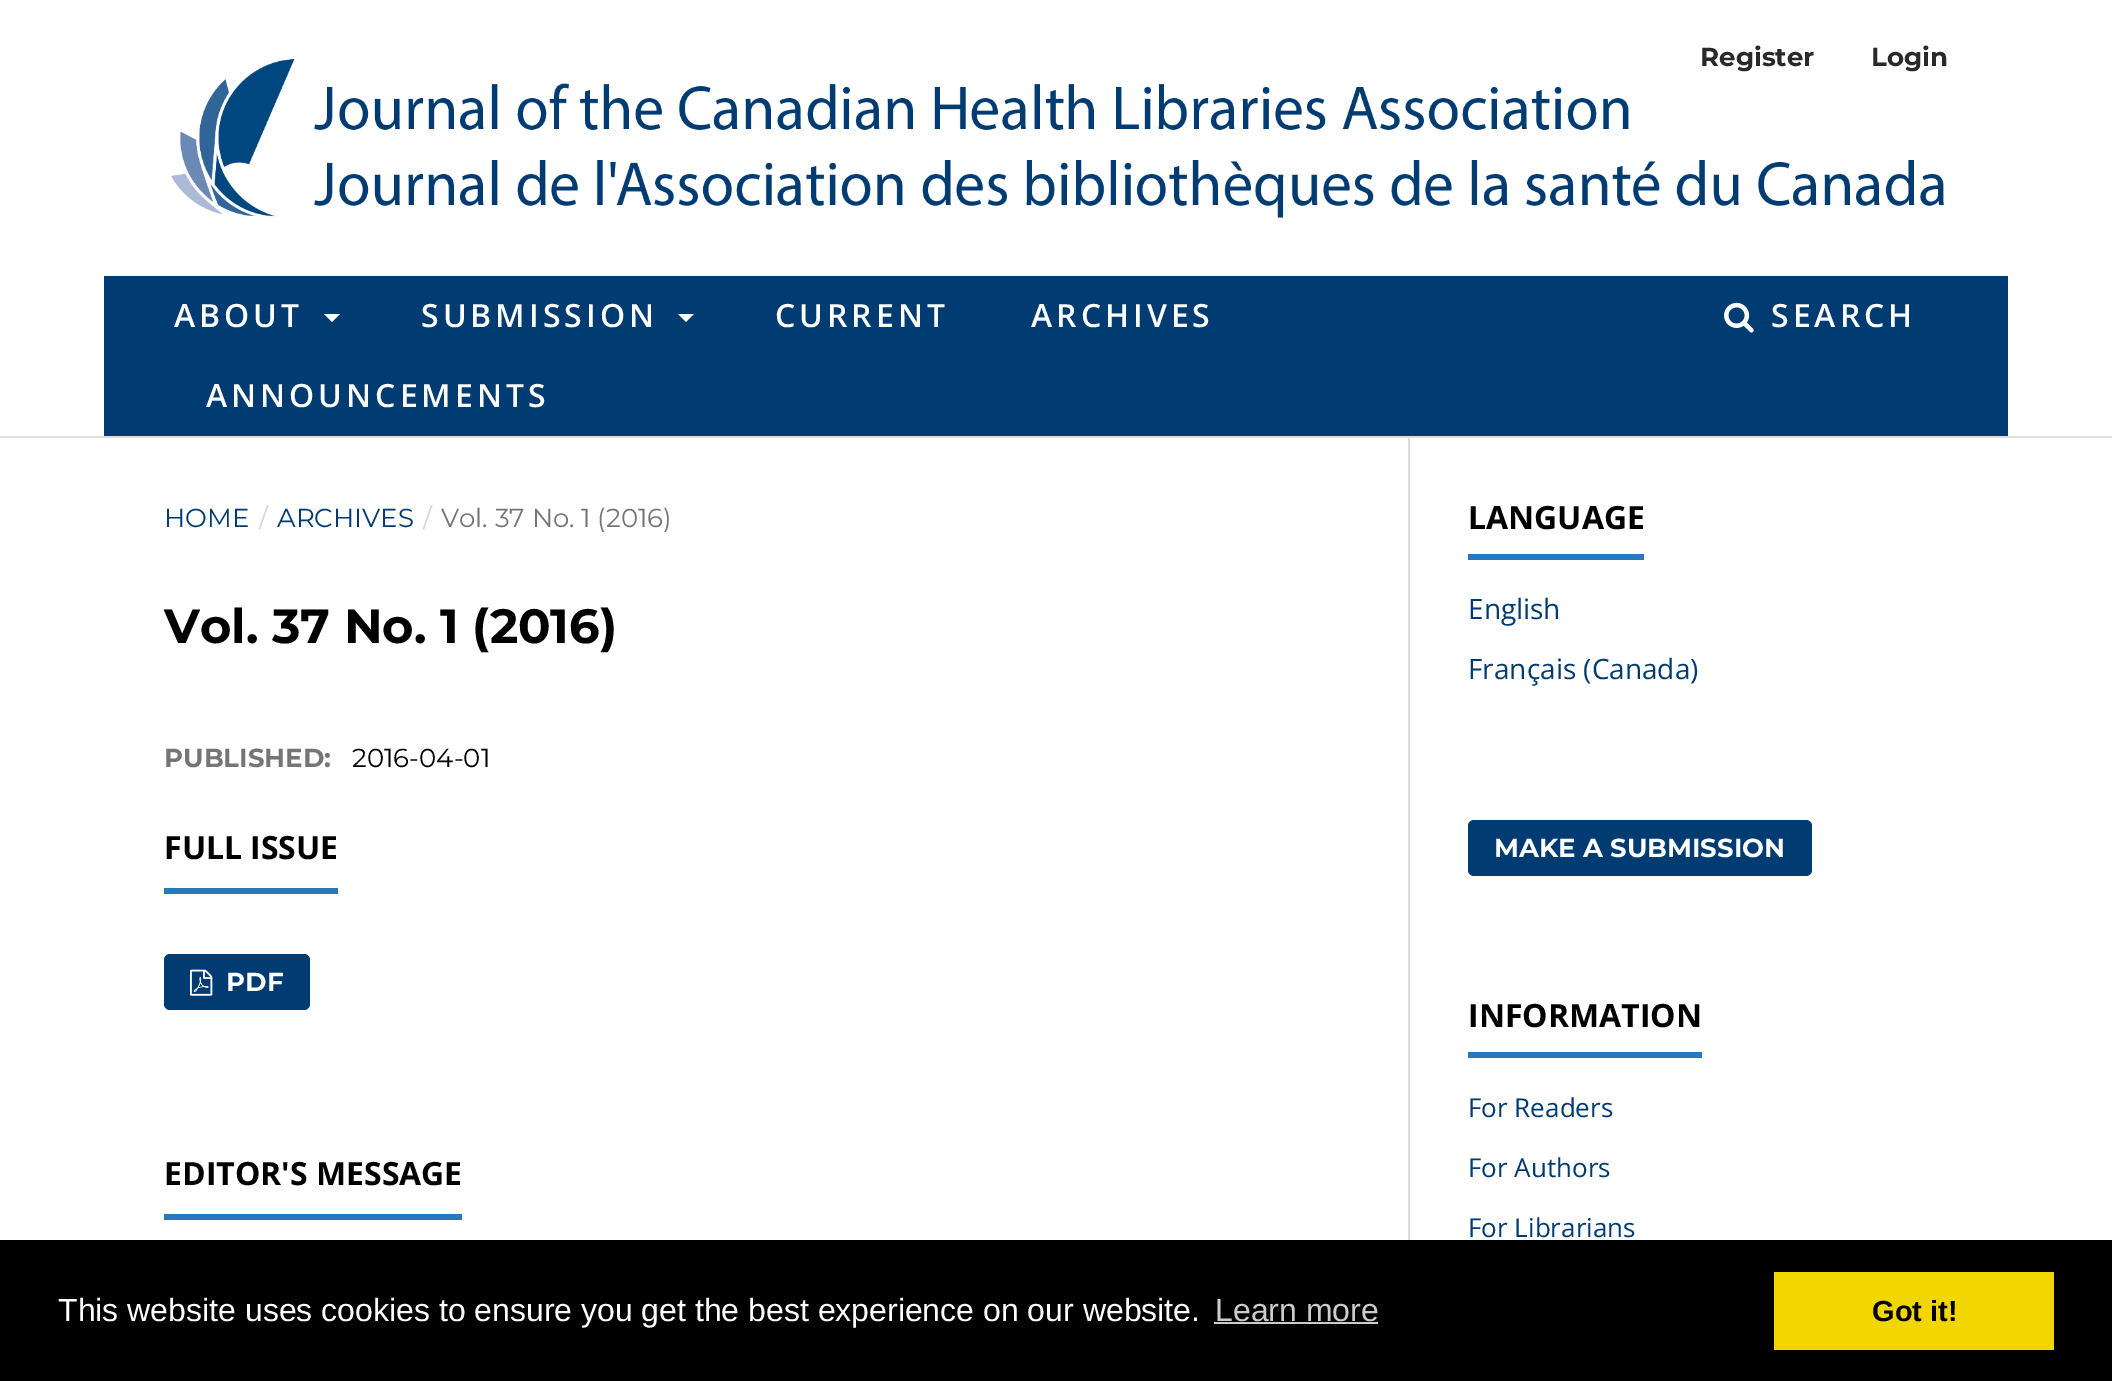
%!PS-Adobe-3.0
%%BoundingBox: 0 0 2112 1381
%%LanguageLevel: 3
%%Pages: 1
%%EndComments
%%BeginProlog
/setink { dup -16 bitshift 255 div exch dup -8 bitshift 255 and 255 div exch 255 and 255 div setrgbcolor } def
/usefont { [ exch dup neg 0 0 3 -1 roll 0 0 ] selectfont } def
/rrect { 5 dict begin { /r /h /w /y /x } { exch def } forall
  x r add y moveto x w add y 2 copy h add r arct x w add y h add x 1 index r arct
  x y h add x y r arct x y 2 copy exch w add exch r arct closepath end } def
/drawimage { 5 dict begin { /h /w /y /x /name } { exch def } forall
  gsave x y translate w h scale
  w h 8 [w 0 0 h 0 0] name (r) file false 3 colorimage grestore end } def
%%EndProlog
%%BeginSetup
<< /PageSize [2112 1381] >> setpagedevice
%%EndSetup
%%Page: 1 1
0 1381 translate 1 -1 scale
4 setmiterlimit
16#FFFFFF setink
0 0 2112 1381 rectfill
16#DDDDDD setink
0 436 2112 2 rectfill
(img2.raw) 171 59 1773 159 drawimage
/Montserrat-Bold 26 usefont
16#292929 setink
1700 66 moveto (Register) show
1871 66 moveto (Login) show
16#003B71 setink
104 276 1904 160 rectfill
/OpenSans-SemiBold 32 usefont
16#FFFFFF setink
174 327 moveto 4 0 (ABOUT) ashow
324 314 moveto 340 314 lineto 332 322 lineto closepath fill
421 327 moveto 4 0 (SUBMISSION) ashow
678 314 moveto 694 314 lineto 686 322 lineto closepath fill
775 327 moveto 4 0 (CURRENT) ashow
1031 327 moveto 4 0 (ARCHIVES) ashow
206 407 moveto 4 0 (ANNOUNCEMENTS) ashow
(img1.raw) 1724 302 30 31 drawimage
1771 327 moveto 4 0 (SEARCH) ashow
/Montserrat-Regular 26 usefont
16#003B71 setink
164 527 moveto (HOME) show
16#D6D6D6 setink
259 527 moveto (/) show
16#003B71 setink
277 527 moveto (ARCHIVES) show
16#D6D6D6 setink
423 527 moveto (/) show
16#757575 setink
441 527 moveto (Vol. 37 No. 1 \(2016\)) show
/Montserrat-Bold 48 usefont
16#000000 setink
164 643 moveto (Vol. 37 No. 1 \(2016\)) show
/Montserrat-Bold 26 usefont
16#757575 setink
164 767 moveto (PUBLISHED:) show
/Montserrat-Regular 26 usefont
16#000000 setink
352 767 moveto (2016-04-01) show
16#2878BD setink
164 888 174 6 rectfill
/OpenSans-Bold 32 usefont
16#000000 setink
164 859 moveto (FULL ISSUE) show
16#003B71 setink
164 954 146 56 6 rrect fill
(img3.raw) 190 969 23 27 drawimage
/Montserrat-Bold 26 usefont
16#FFFFFF setink
226 991 moveto (PDF) show
16#2878BD setink
164 1214 298 6 rectfill
/OpenSans-Bold 32 usefont
16#000000 setink
164 1185 moveto (EDITOR'S MESSAGE) show
16#DDDDDD setink
1408 438 2 802 rectfill
16#2878BD setink
1468 554 176 6 rectfill
16#000000 setink
1468 529 moveto (LANGUAGE) show
/OpenSans-Regular 28 usefont
16#003B71 setink
1468 619 moveto (English) show
1468 679 moveto (Français \(Canada\)) show
1468 820 344 56 6 rrect fill
/Montserrat-Bold 26 usefont
16#FFFFFF setink
1494 857 moveto (MAKE A SUBMISSION) show
16#2878BD setink
1468 1052 234 6 rectfill
/OpenSans-Bold 32 usefont
16#000000 setink
1468 1027 moveto (INFORMATION) show
/OpenSans-Regular 26 usefont
16#003B71 setink
[
    [(For Readers) 1468 1117]
    [(For Authors) 1468 1177]
    [(For Librarians) 1468 1237]
] { aload pop moveto show } forall
16#000000 setink
0 1240 2112 141 rectfill
/LiberationSans-Regular 32 usefont
16#FFFFFF setink
58 1321 moveto (This website uses cookies to ensure you get the best experience on our website.) show
16#CCCCCC setink
1215 1321 moveto (Learn more) show
1214 1322 164 2 rectfill
16#F1D600 setink
1774 1272 280 78 rectfill
/LiberationSans-Bold 29 usefont
16#000000 setink
1872 1321 moveto (Got it!) show
showpage
%%EOF
